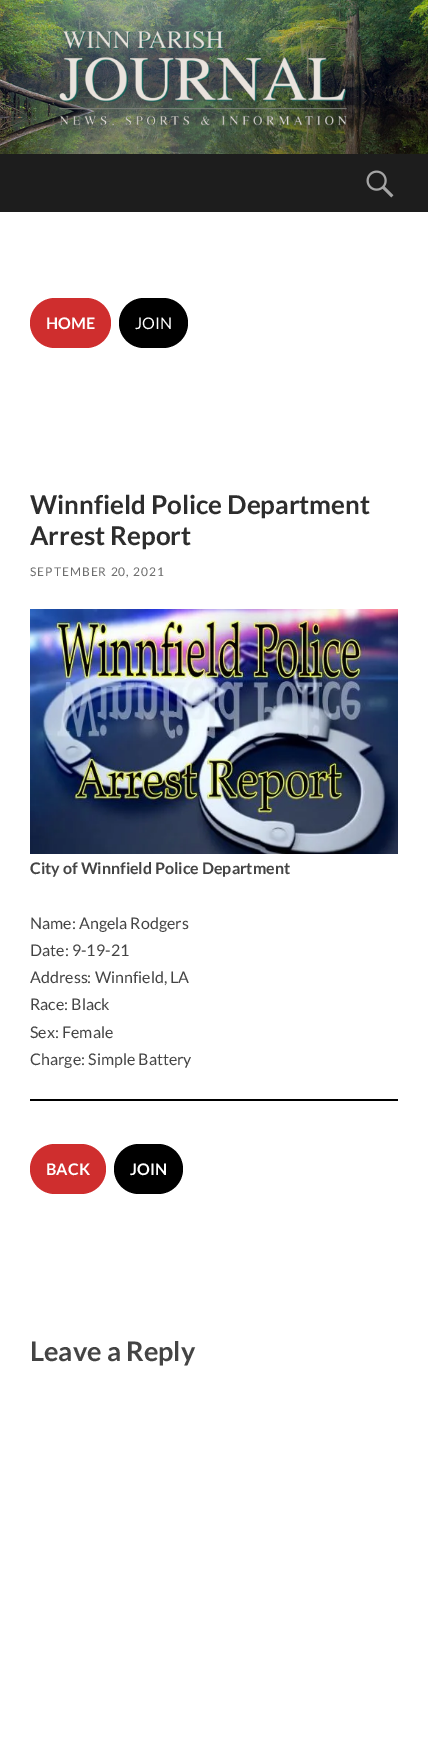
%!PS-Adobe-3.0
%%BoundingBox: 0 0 428 1763
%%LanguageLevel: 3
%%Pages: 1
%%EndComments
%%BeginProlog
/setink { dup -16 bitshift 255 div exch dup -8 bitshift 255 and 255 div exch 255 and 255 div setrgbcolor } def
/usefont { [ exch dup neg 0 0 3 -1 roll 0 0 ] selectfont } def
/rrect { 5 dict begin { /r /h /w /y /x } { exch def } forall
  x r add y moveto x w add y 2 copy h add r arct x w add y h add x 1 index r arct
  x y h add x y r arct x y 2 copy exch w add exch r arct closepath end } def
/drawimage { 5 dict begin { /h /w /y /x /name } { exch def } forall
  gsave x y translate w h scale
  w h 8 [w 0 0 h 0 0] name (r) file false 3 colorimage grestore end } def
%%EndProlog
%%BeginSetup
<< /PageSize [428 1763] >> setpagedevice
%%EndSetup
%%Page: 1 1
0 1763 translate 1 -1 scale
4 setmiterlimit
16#FFFFFF setink
0 0 428 1763 rectfill
(img1.raw) 0 0 428 154 drawimage
16#1D1D1D setink
0 154 428 58 rectfill
(img2.raw) 366 170 28 28 drawimage
16#CF2E2E setink
30 298 81 50 25 rrect fill
/Lato-Bold 16 usefont
16#FFFFFF setink
46 329 moveto (HOME) show
16#000000 setink
119 298 69 50 25 rrect fill
/Lato-Regular 16 usefont
16#FFFFFF setink
135 329 moveto (JOIN) show
/Lato-Bold 26 usefont
16#2D2D2D setink
30 514 moveto (Winnfield Police Department) show
30 545 moveto (Arrest Report) show
/Lato-Regular 12 usefont
16#6D6D6D setink
30 576 moveto 1 0 (SEPTEMBER 20, 2021) ashow
(img3.raw) 30 609 368 245 drawimage
/Lato-Bold 16 usefont
16#444444 setink
30 874 moveto (City of Winnfield Police Department) show
/Lato-Regular 16 usefont
[
    [(Name: Angela Rodgers) 30 929]
    [(Date: 9-19-21) 30 956]
    [(Address: Winnfield, LA) 30 983]
    [(Race: Black) 30 1010]
    [(Sex: Female) 30 1038]
    [(Charge: Simple Battery) 30 1065]
] { aload pop moveto show } forall
16#000000 setink
30 1099 368 2 rectfill
16#CF2E2E setink
30 1144 76 50 25 rrect fill
/Lato-Bold 16 usefont
16#FFFFFF setink
46 1175 moveto (BACK) show
16#000000 setink
114 1144 69 50 25 rrect fill
16#FFFFFF setink
130 1175 moveto (JOIN) show
/Lato-Bold 27 usefont
16#444444 setink
30 1361 moveto (Leave a Reply) show
showpage
%%EOF
